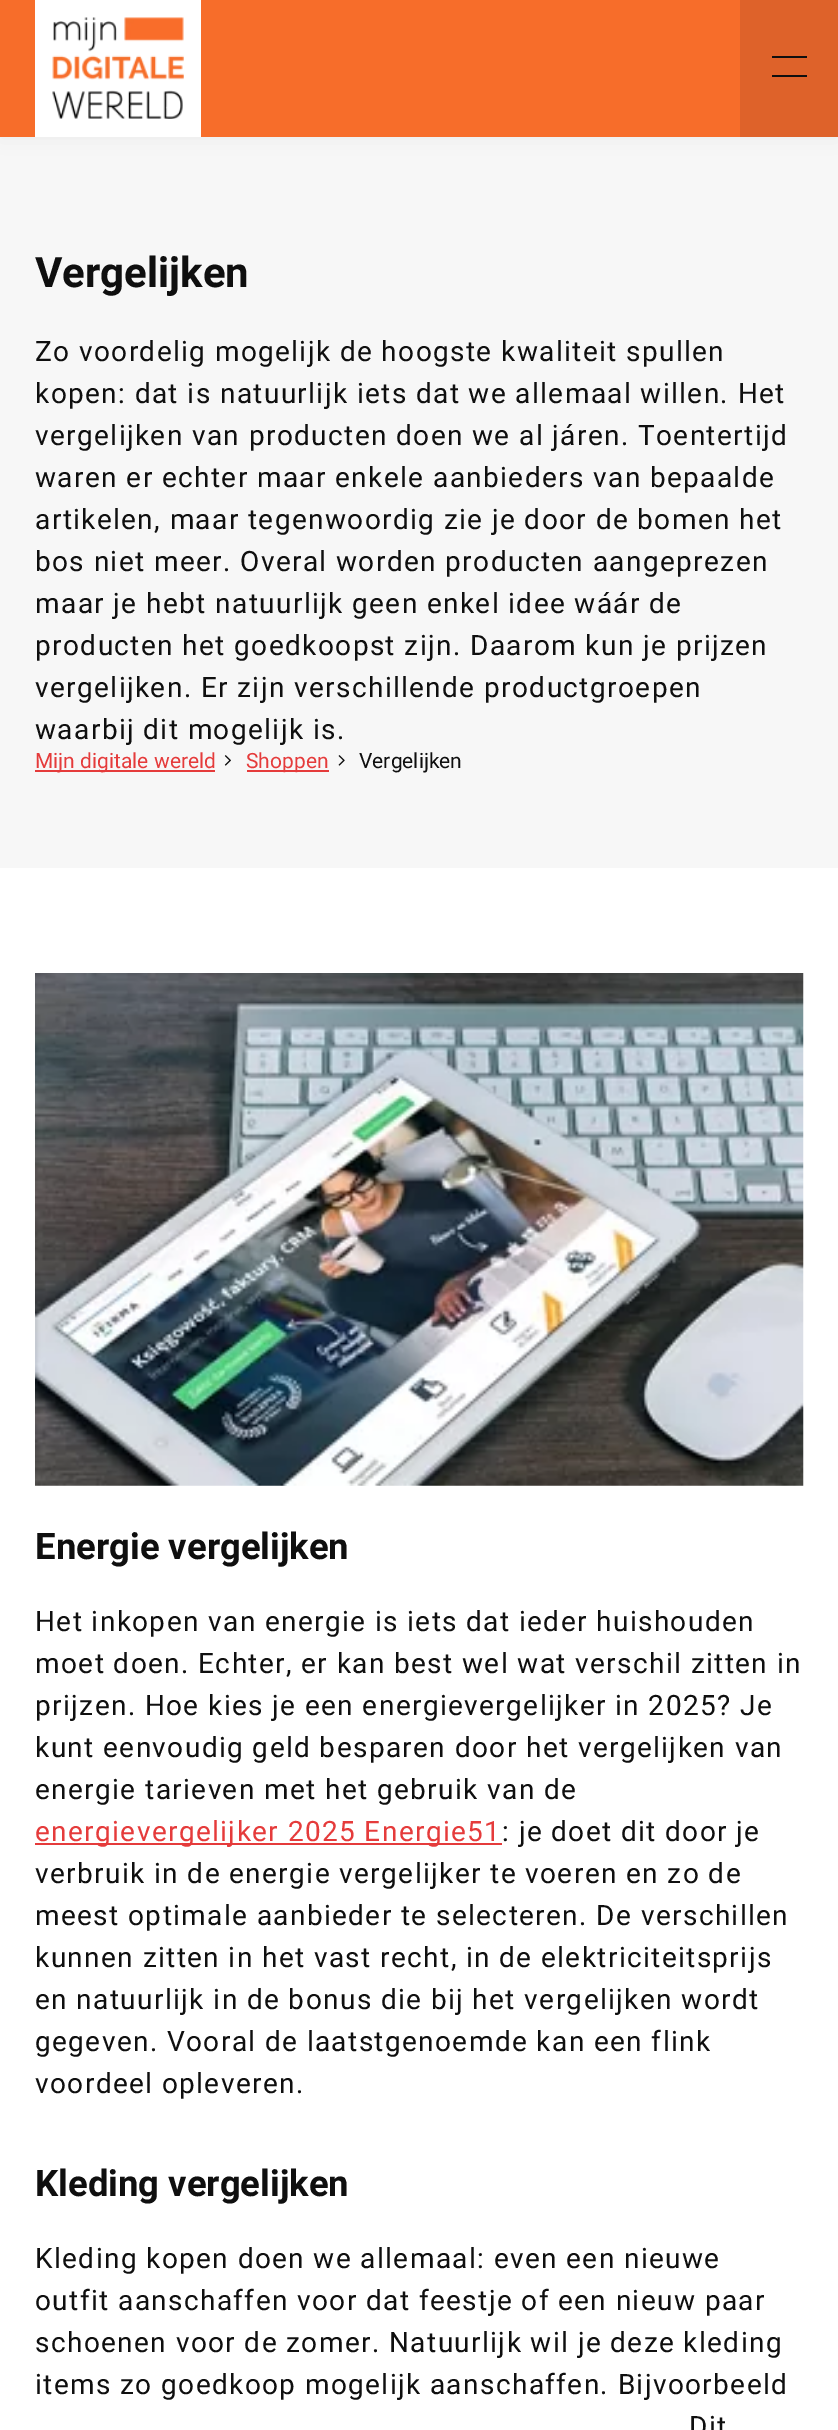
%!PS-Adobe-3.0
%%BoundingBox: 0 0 838 2430
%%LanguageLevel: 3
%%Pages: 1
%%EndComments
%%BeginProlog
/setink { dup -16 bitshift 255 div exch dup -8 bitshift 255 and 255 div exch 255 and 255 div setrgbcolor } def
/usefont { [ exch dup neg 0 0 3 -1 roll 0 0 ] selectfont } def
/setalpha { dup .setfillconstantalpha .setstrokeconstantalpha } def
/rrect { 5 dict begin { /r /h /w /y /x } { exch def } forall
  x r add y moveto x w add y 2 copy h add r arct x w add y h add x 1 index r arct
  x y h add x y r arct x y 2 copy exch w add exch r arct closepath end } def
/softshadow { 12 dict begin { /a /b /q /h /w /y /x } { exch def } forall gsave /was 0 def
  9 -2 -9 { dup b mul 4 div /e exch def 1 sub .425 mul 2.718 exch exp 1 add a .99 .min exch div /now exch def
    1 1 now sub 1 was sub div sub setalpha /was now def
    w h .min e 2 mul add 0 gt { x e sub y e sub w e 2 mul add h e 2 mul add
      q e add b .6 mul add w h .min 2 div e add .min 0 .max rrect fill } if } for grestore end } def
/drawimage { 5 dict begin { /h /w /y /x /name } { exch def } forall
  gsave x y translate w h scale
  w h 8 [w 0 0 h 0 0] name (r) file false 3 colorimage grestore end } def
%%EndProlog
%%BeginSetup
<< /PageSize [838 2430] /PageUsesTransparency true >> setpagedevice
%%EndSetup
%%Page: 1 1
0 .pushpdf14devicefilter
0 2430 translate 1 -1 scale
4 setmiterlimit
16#F7F7F7 setink
0 0 838 2430 rectfill
16#000000 setink
0 0 838 137 0 10.5 0.05 softshadow
16#F76D2A setink
0 0 740 137 rectfill
16#FFFFFF setink
35 0 166 137 rectfill
(img1.raw) 52 17 132 102 drawimage
[
    [740 0 98 137 16#DE622A]
    [772 56 35 2 16#0F0F0F]
    [772 75 35 2 16#0F0F0F]
] { aload pop setink rectfill } forall
/Roboto-Bold 42 usefont
35 287 moveto (Vergelijken) show
/Roboto-Regular 28 usefont
35 361 moveto 1.4 0 (Zo voordelig mogelijk de hoogste kwaliteit spullen) ashow
35 403 moveto 1.4 0 (kopen: dat is natuurlijk iets dat we allemaal willen. Het) ashow
35 445 moveto 1.4 0 (vergelijken van producten doen we al járen. Toentertijd) ashow
35 487 moveto 1.4 0 (waren er echter maar enkele aanbieders van bepaalde) ashow
35 529 moveto 1.4 0 (artikelen, maar tegenwoordig zie je door de bomen het) ashow
35 571 moveto 1.4 0 (bos niet meer. Overal worden producten aangeprezen) ashow
35 613 moveto 1.4 0 (maar je hebt natuurlijk geen enkel idee wáár de) ashow
35 655 moveto 1.4 0 (producten het goedkoopst zijn. Daarom kun je prijzen) ashow
35 697 moveto 1.4 0 (vergelijken. Er zijn verschillende productgroepen) ashow
35 739 moveto 1.4 0 (waarbij dit mogelijk is.) ashow
16#E53B3B setink
35 770 180 2 rectfill
/Roboto-Regular 21 usefont
35 768 moveto (Mijn digitale wereld) show
(img2.raw) 224 755 7 11 drawimage
247 770 82 2 rectfill
246 768 moveto (Shoppen) show
(img3.raw) 338 755 7 11 drawimage
16#0F0F0F setink
359 768 moveto (Vergelijken) show
16#FFFFFF setink
0 868 838 1562 rectfill
(img4.raw) 35 973 769 513 drawimage
/Roboto-Bold 36.5 usefont
16#0F0F0F setink
35 1559 moveto (Energie vergelijken) show
/Roboto-Regular 28 usefont
35 1631 moveto 1.4 0 (Het inkopen van energie is iets dat ieder huishouden) ashow
35 1673 moveto 1.4 0 (moet doen. Echter, er kan best wel wat verschil zitten in) ashow
35 1715 moveto 1.4 0 (prijzen. Hoe kies je een energievergelijker in 2025? Je) ashow
35 1757 moveto 1.4 0 (kunt eenvoudig geld besparen door het vergelijken van) ashow
35 1799 moveto 1.4 0 (energie tarieven met het gebruik van de) ashow
16#E53B3B setink
35 1843 467 2 rectfill
35 1841 moveto 1.4 0 (energievergelijker 2025 Energie51) ashow
16#0F0F0F setink
502 1841 moveto 1.4 0 (: je doet dit door je) ashow
35 1883 moveto 1.4 0 (verbruik in de energie vergelijker te voeren en zo de) ashow
35 1925 moveto 1.4 0 (meest optimale aanbieder te selecteren. De verschillen) ashow
35 1967 moveto 1.4 0 (kunnen zitten in het vast recht, in de elektriciteitsprijs) ashow
35 2009 moveto 1.4 0 (en natuurlijk in de bonus die bij het vergelijken wordt) ashow
35 2051 moveto 1.4 0 (gegeven. Vooral de laatstgenoemde kan een flink) ashow
35 2093 moveto 1.4 0 (voordeel opleveren.) ashow
/Roboto-Bold 36.5 usefont
35 2196 moveto (Kleding vergelijken) show
/Roboto-Regular 28 usefont
35 2268 moveto 1.4 0 (Kleding kopen doen we allemaal: even een nieuwe) ashow
35 2310 moveto 1.4 0 (outfit aanschaffen voor dat feestje of een nieuw paar) ashow
35 2352 moveto 1.4 0 (schoenen voor de zomer. Natuurlijk wil je deze kleding) ashow
35 2394 moveto 1.4 0 (items zo goedkoop mogelijk aanschaffen. Bijvoorbeeld) ashow
689 2436 moveto 1.4 0 (Dit) ashow
.poppdf14devicefilter showpage
%%EOF
